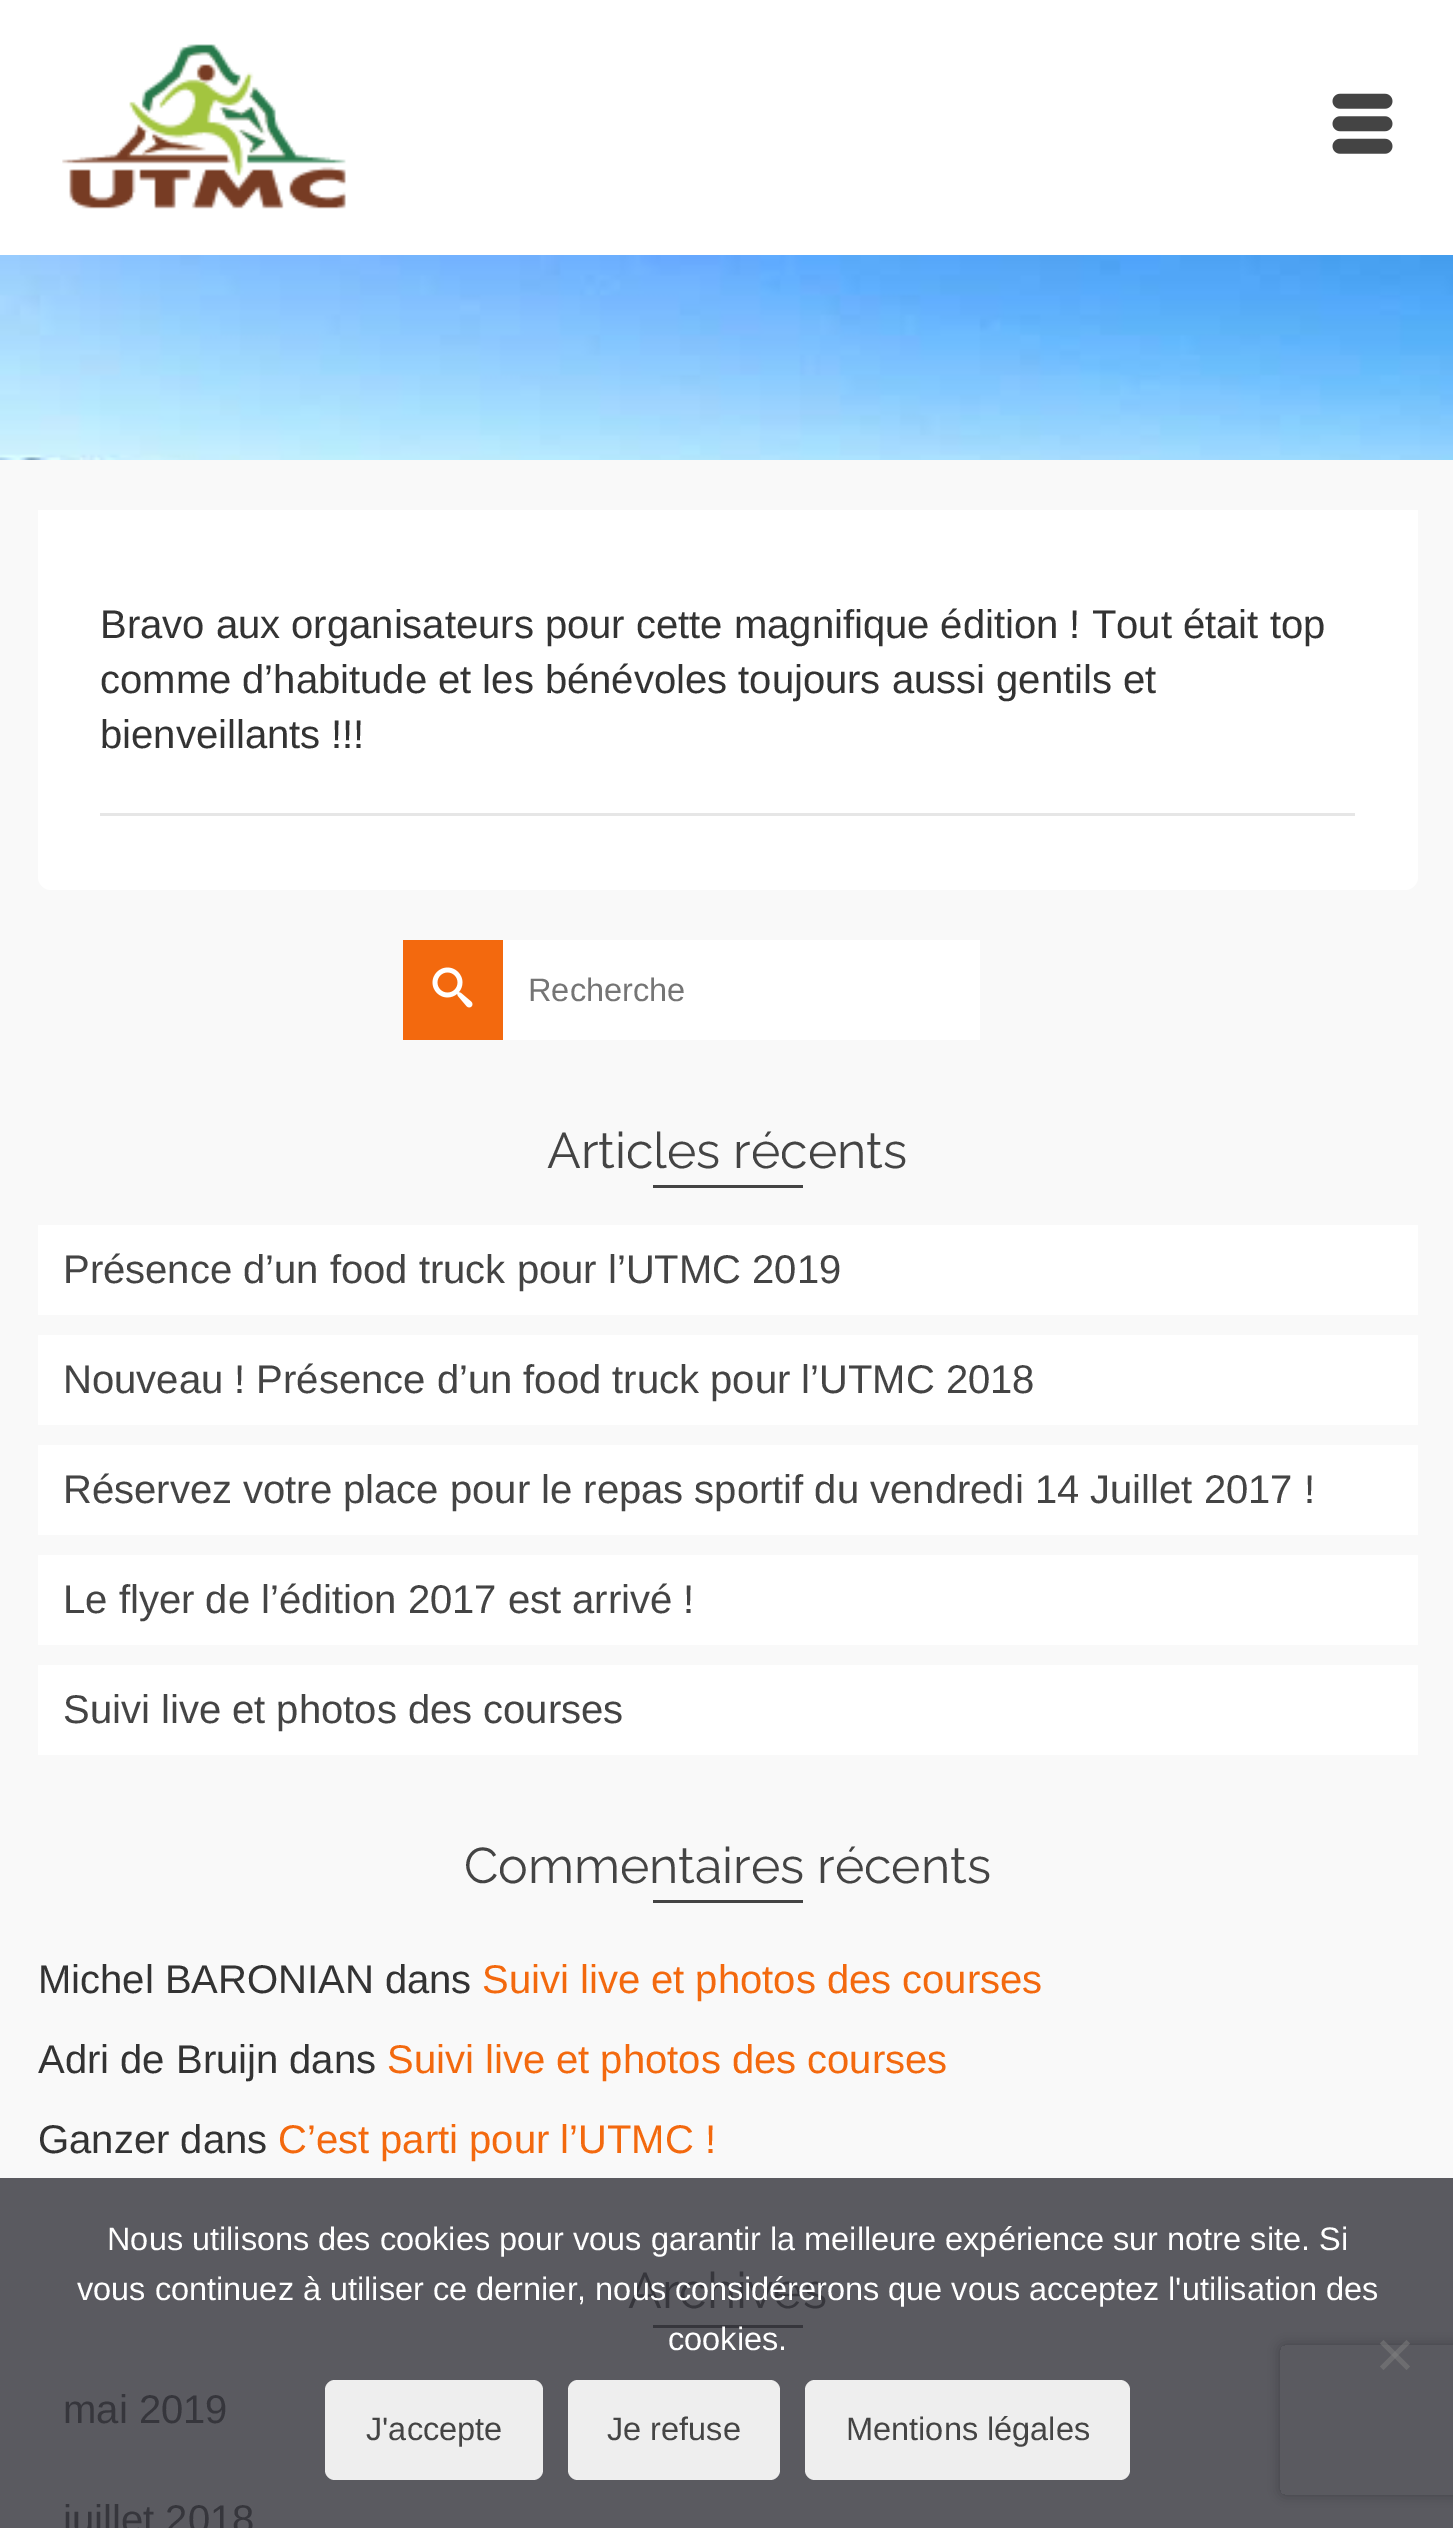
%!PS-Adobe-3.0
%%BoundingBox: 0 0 1453 2528
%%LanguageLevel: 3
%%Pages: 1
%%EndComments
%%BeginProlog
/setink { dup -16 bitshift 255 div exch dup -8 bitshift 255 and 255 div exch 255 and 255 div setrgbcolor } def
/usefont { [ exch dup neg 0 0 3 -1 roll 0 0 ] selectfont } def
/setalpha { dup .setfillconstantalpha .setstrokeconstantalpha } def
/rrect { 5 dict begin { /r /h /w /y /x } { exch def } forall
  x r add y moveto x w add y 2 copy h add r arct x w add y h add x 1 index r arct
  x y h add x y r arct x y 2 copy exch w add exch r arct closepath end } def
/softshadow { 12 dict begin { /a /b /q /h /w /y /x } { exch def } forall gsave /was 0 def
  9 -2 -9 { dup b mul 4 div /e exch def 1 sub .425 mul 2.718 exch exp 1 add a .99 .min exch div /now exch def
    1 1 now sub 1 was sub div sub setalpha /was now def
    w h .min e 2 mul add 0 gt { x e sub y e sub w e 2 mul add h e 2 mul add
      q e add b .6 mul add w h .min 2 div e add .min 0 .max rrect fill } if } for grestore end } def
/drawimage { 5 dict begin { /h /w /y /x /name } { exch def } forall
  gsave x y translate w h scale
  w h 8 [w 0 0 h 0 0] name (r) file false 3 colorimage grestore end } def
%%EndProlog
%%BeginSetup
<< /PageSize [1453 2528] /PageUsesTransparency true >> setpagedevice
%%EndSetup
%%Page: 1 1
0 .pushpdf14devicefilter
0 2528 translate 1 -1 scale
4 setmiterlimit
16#FFFFFF setink
0 0 1453 2528 rectfill
(img1.raw) 62 44 284 165 drawimage
(img2.raw) 1332 93 61 61 drawimage
16#F9F9F9 setink
0 460 1453 1718 rectfill
16#5A5A60 setink
0 2178 1453 350 rectfill
(img3.raw) 0 255 1453 205 drawimage
16#FFFFFF setink
38 510 moveto 1418 510 lineto 1418 877 lineto 1418 884 1412 890 1405 890 curveto 51 890 lineto 44 890 38 884 38 877 curveto closepath fill
/LiberationSans-Regular 40 usefont
16#333333 setink
[
    [(Bravo aux organisateurs pour cette magnifique édition ! Tout était top) 100 638]
    [(comme d’habitude et les bénévoles toujours aussi gentils et) 100 693]
    [(bienveillants !!!) 100 748]
] { aload pop moveto show } forall
16#E6E6E6 setink
100 813 1255 3 rectfill
16#F3690E setink
403 940 100 100 rectfill
(img4.raw) 432 967 41 41 drawimage
16#FFFFFF setink
503 940 477 100 rectfill
/LiberationSans-Regular 32.5 usefont
16#757575 setink
528 1001 moveto (Recherche) show
/Raleway-Regular 50 usefont
16#444444 setink
547 1168 moveto (Articles récents) show
653 1185 150 3 rectfill
16#FFFFFF setink
38 1225 1380 90 rectfill
/LiberationSans-Regular 40 usefont
16#444444 setink
63 1283 moveto (Présence d’un food truck pour l’UTMC 2019) show
16#FFFFFF setink
38 1335 1380 90 rectfill
16#444444 setink
63 1393 moveto (Nouveau ! Présence d’un food truck pour l’UTMC 2018) show
16#FFFFFF setink
38 1445 1380 90 rectfill
16#444444 setink
63 1503 moveto (Réservez votre place pour le repas sportif du vendredi 14 Juillet 2017 !) show
16#FFFFFF setink
38 1555 1380 90 rectfill
16#444444 setink
63 1613 moveto (Le flyer de l’édition 2017 est arrivé !) show
16#FFFFFF setink
38 1665 1380 90 rectfill
16#444444 setink
63 1723 moveto (Suivi live et photos des courses) show
/Raleway-Regular 50 usefont
464 1883 moveto (Commentaires récents) show
653 1900 150 3 rectfill
/LiberationSans-Regular 40 usefont
16#333333 setink
38 1993 moveto (Michel BARONIAN dans) show
16#F3690E setink
482 1993 moveto (Suivi live et photos des courses) show
16#333333 setink
38 2073 moveto (Adri de Bruijn dans) show
16#F3690E setink
387 2073 moveto (Suivi live et photos des courses) show
16#333333 setink
38 2153 moveto (Ganzer dans) show
16#F3690E setink
278 2153 moveto (C’est parti pour l’UTMC !) show
/Raleway-Regular 50 usefont
16#36363C setink
628 2308 moveto (Archives) show
653 2325 150 3 rectfill
/LiberationSans-Regular 40 usefont
63 2423 moveto (mai 2019) show
63 2533 moveto (juillet 2018) show
/LiberationSans-Regular 32.5 usefont
16#FFFFFF setink
[
    [(Nous utilisons des cookies pour vous garantir la meilleure expérience sur notre site. Si) 107 2250]
    [(vous continuez à utiliser ce dernier, nous considérerons que vous acceptez l'utilisation des) 77 2300]
    [(cookies.) 668 2350]
] { aload pop moveto show } forall
gsave
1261 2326 moveto 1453 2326 lineto 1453 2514 lineto 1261 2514 lineto closepath 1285 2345 moveto 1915 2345 lineto 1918 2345 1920 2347 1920 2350 curveto 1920 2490 lineto 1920 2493 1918 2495 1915 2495 curveto 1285 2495 lineto 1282 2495 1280 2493 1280 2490 curveto 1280 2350 lineto 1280 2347 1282 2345 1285 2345 curveto closepath eoclip newpath
16#424248 setink
1280 2345 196 150 5 6 1 softshadow
grestore
0.5 setalpha
16#808080 setink
1406.5 2340 moveto 1410 2343.5 lineto 1383.5 2370 lineto 1380 2366.5 lineto closepath fill
1380 2343.5 moveto 1383.5 2340 lineto 1410 2366.5 lineto 1406.5 2370 lineto closepath fill
1 setalpha
16#EEEEEE setink
325 2380 218 100 10 rrect fill
16#444444 setink
366 2440 moveto (J'accepte) show
16#EEEEEE setink
568 2380 212 100 10 rrect fill
16#444444 setink
607 2440 moveto (Je refuse) show
16#EEEEEE setink
805 2380 325 100 10 rrect fill
16#444444 setink
846 2440 moveto (Mentions légales) show
.poppdf14devicefilter showpage
%%EOF
